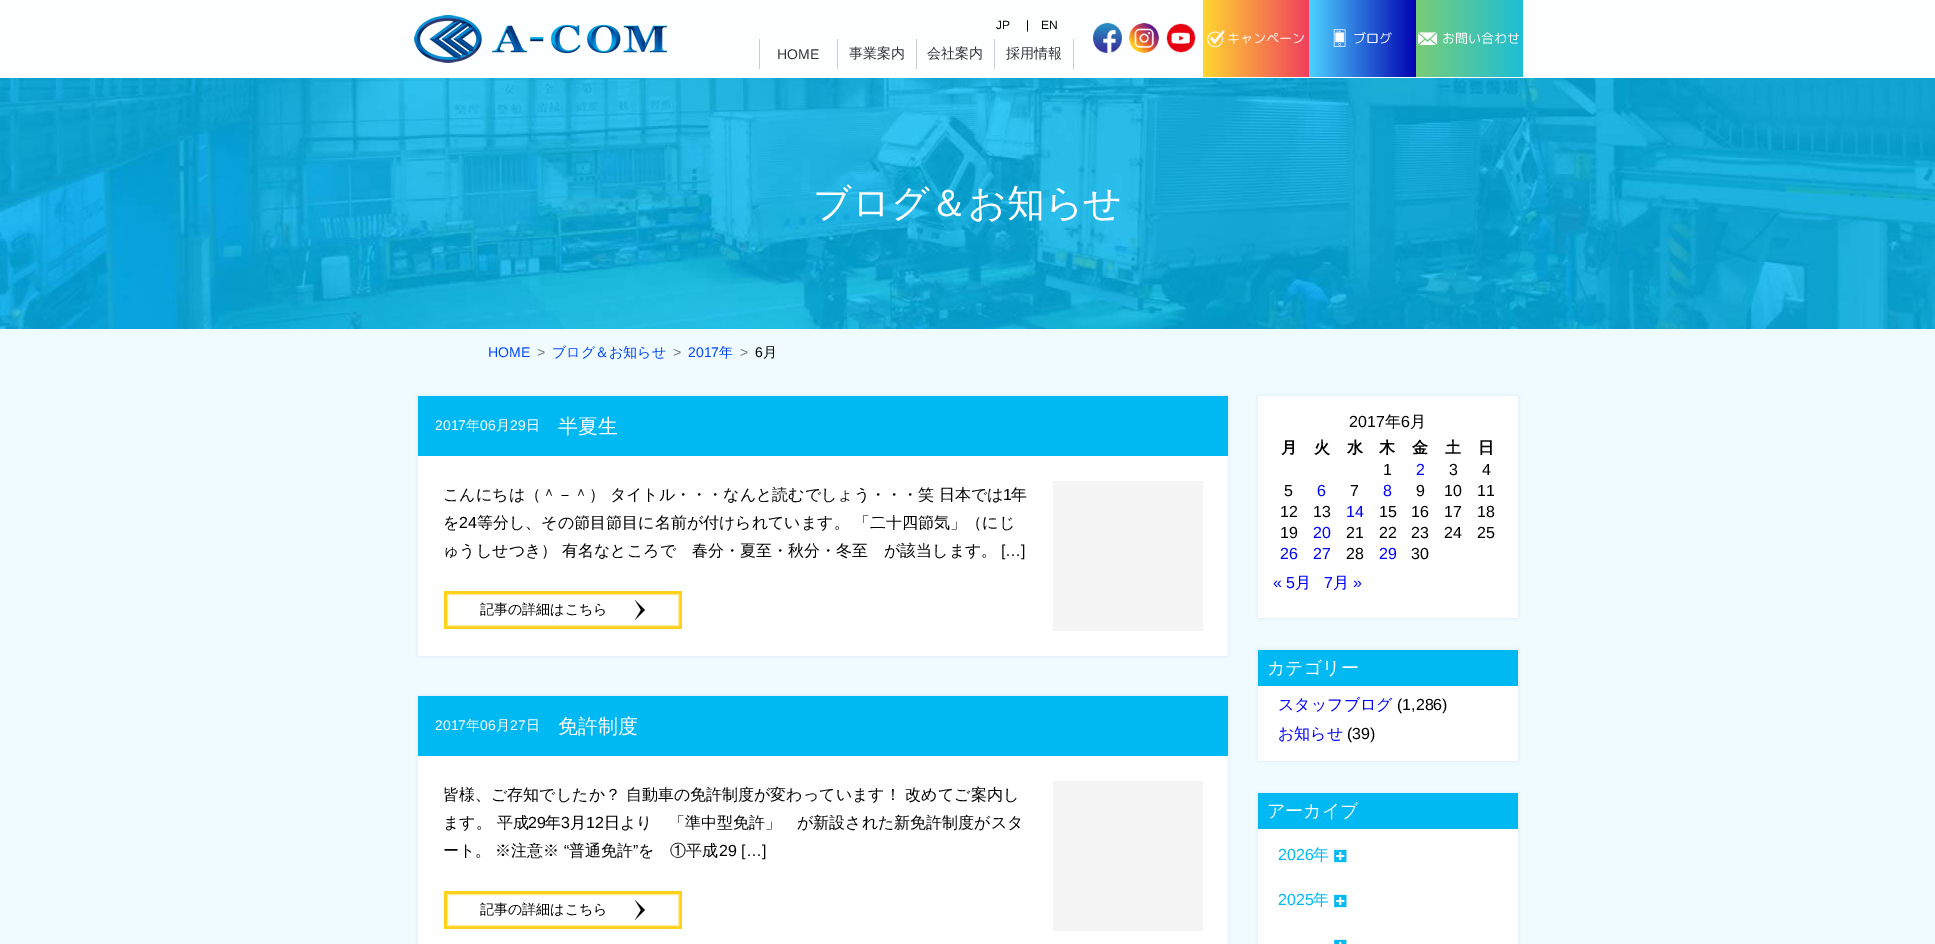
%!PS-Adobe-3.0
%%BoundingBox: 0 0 1935 944
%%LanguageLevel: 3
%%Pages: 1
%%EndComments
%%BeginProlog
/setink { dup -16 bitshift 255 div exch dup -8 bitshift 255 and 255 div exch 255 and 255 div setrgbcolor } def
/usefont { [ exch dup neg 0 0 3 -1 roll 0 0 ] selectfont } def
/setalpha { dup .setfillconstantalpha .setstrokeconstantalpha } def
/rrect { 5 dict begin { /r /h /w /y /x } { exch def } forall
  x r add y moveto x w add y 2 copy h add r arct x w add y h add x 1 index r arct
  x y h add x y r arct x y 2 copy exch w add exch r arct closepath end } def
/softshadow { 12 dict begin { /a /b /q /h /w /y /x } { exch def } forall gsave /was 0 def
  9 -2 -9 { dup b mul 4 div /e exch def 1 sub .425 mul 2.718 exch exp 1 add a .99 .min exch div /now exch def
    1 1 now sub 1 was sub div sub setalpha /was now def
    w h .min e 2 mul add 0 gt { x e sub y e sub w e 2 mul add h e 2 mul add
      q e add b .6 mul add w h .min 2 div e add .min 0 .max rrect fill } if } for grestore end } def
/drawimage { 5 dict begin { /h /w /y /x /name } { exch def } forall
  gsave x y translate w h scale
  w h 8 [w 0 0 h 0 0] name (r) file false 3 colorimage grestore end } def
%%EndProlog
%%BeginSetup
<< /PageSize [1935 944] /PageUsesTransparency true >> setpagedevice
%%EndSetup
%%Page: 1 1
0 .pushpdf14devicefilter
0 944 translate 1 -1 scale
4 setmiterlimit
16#EFFBFE setink
0 0 1935 944 rectfill
16#FCFEFF setink
0 0 1935 77 rectfill
16#FFFFFF setink
0 77 1935 1 rectfill
(img1.raw) 414 15 253 48 drawimage
/LiberationSans-Regular 12 usefont
16#000000 setink
[
    [(JP) 996 29]
    [(|) 1026 29]
    [(EN) 1041 29]
] { aload pop moveto show } forall
16#CCCCCC setink
837 39 1 30 rectfill
759 39 1 30 rectfill
/LiberationSans-Regular 14 usefont
16#333333 setink
777 59 moveto (HOME) show
16#CCCCCC setink
916 39 1 30 rectfill
/WenQuanYiZenHei-Medium 14 usefont
16#333333 setink
849 58 moveto (事業案内) show
16#CCCCCC setink
994 39 1 30 rectfill
16#333333 setink
927 58 moveto (会社案内) show
16#CCCCCC setink
1073 39 1 30 rectfill
16#333333 setink
1006 58 moveto (採用情報) show
(img2.raw) 1093 23 29 30 drawimage
(img3.raw) 1129 23 30 30 drawimage
(img4.raw) 1166 23 30 30 drawimage
gsave 1203 0 moveto 1309 0 lineto 1309 77 lineto 1203 77 lineto closepath clip newpath
<< /ShadingType 2 /ColorSpace /DeviceRGB /Coords [1203 39 1309 39] /Extend [true true] /Function << /FunctionType 2 /Domain [0 1] /C0 [1 0.843 0.188] /C1 [0.945 0.247 0.369] /N 1 >> >> shfill grestore
(img5.raw) 1207 30 18 18 drawimage
/RoundedMplus1c-Regular 13 usefont
16#FFFFFF setink
1227 43 moveto (キャンペーン) show
gsave 1309 0 moveto 1416 0 lineto 1416 77 lineto 1309 77 lineto closepath clip newpath
<< /ShadingType 2 /ColorSpace /DeviceRGB /Coords [1309 39 1416 39] /Extend [true true] /Function << /FunctionType 2 /Domain [0 1] /C0 [0.302 0.824 1] /C1 [0.012 0.008 0.698] /N 1 >> >> shfill grestore
(img6.raw) 1333 29 13 18 drawimage
1353 43 moveto (ブログ) show
gsave 1416 0 moveto 1523 0 lineto 1523 77 lineto 1416 77 lineto closepath clip newpath
<< /ShadingType 2 /ColorSpace /DeviceRGB /Coords [1416 39 1523 39] /Extend [true true] /Function << /FunctionType 2 /Domain [0 1] /C0 [0.478 0.804 0.463] /C1 [0.11 0.745 0.843] /N 1 >> >> shfill grestore
(img7.raw) 1418 32 20 13 drawimage
1442 43 moveto (お問い合わせ) show
(img8.raw) 0 78 1935 251 drawimage
/WenQuanYiZenHei-Medium 38 usefont
813 216 moveto (ブログ＆お知らせ) show
/LiberationSans-Regular 14 usefont
16#0044FF setink
488 357 moveto (HOME) show
16#777777 setink
537 357 moveto (>) show
/WenQuanYiZenHei-Medium 14 usefont
16#0044FF setink
552 357 moveto (ブログ＆お知らせ) show
/LiberationSans-Regular 14 usefont
16#777777 setink
673 357 moveto (>) show
16#0044FF setink
688 357 moveto (2017) show
/WenQuanYiZenHei-Medium 14 usefont
719 357 moveto (年) show
/LiberationSans-Regular 14 usefont
16#777777 setink
740 357 moveto (>) show
16#000000 setink
755 357 moveto (6) show
/WenQuanYiZenHei-Medium 14 usefont
763 357 moveto (月) show
16#27448D setink
418 396 810 260 0 1.5 0.1 softshadow
16#00B8F2 setink
418 396 810 60 rectfill
/LiberationSans-Regular 14 usefont
16#FFFFFF setink
435 430 moveto (2017) show
/WenQuanYiZenHei-Medium 14 usefont
466 430 moveto (年) show
/LiberationSans-Regular 14 usefont
480 430 moveto (06) show
/WenQuanYiZenHei-Medium 14 usefont
496 430 moveto (月) show
/LiberationSans-Regular 14 usefont
510 430 moveto (29) show
/WenQuanYiZenHei-Medium 14 usefont
526 430 moveto (日) show
/WenQuanYiZenHei-Medium 20 usefont
558 433 moveto (半夏生) show
418 456 810 200 rectfill
/WenQuanYiZenHei-Medium 16 usefont
16#000000 setink
443 500 moveto (こんにちは（＾－＾） タイトル・・・なんと読むでしょう・・・笑 日本では) show
/LiberationSans-Regular 16 usefont
1003 500 moveto (1) show
/WenQuanYiZenHei-Medium 16 usefont
1011 500 moveto (年) show
443 528 moveto (を) show
/LiberationSans-Regular 16 usefont
459 528 moveto (24) show
/WenQuanYiZenHei-Medium 16 usefont
477 528 moveto (等分し、その節目節目に名前が付けられています。 「二十四節気」（にじ) show
443 556 moveto (ゅうしせつき） 有名なところで　春分・夏至・秋分・冬至　が該当します。) show
/LiberationSans-Regular 16 usefont
1001 556 moveto ([…]) show
16#F4F4F4 setink
1053 481 150 150 rectfill
16#FFD219 setink
444 591 238 38 rectfill
16#FFFFFF setink
447.5 594.5 moveto 678.5 594.5 lineto 678.5 625.5 lineto 447.5 625.5 lineto closepath gsave fill grestore
16#FFEB9B setink
stroke
/WenQuanYiZenHei-Medium 14 usefont
16#000000 setink
480 614 moveto (記事の詳細はこちら) show
645 610 moveto 635 620 lineto 641 610 lineto 635 600 lineto closepath fill
16#27448D setink
418 696 810 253 0 1.5 0.1 softshadow
16#00B8F2 setink
418 696 810 60 rectfill
/LiberationSans-Regular 14 usefont
16#FFFFFF setink
435 730 moveto (2017) show
/WenQuanYiZenHei-Medium 14 usefont
466 730 moveto (年) show
/LiberationSans-Regular 14 usefont
480 730 moveto (06) show
/WenQuanYiZenHei-Medium 14 usefont
496 730 moveto (月) show
/LiberationSans-Regular 14 usefont
510 730 moveto (27) show
/WenQuanYiZenHei-Medium 14 usefont
526 730 moveto (日) show
/WenQuanYiZenHei-Medium 20 usefont
558 733 moveto (免許制度) show
418 756 810 188 rectfill
/WenQuanYiZenHei-Medium 16 usefont
16#000000 setink
443 800 moveto (皆様、ご存知でしたか？ 自動車の免許制度が変わっています！ 改めてご案内し) show
443 828 moveto (ます。 平成) show
/LiberationSans-Regular 16 usefont
528 828 moveto (29) show
/WenQuanYiZenHei-Medium 16 usefont
545 828 moveto (年) show
/LiberationSans-Regular 16 usefont
561 828 moveto (3) show
/WenQuanYiZenHei-Medium 16 usefont
570 828 moveto (月) show
/LiberationSans-Regular 16 usefont
586 828 moveto (12) show
/WenQuanYiZenHei-Medium 16 usefont
[
    [(日より　「準中型免許」　が新設された新免許制度がスタ) 604 828]
    [(ート。) 443 856]
    [(※注意※) 495 856]
] { aload pop moveto show } forall
/LiberationSans-Regular 16 usefont
564 856 moveto (“) show
/WenQuanYiZenHei-Medium 16 usefont
569 856 moveto (普通免許) show
/LiberationSans-Regular 16 usefont
633 856 moveto (”) show
/WenQuanYiZenHei-Medium 16 usefont
638 856 moveto (を　①平成) show
/LiberationSans-Regular 16 usefont
719 856 moveto (29 […]) show
16#F4F4F4 setink
1053 781 150 150 rectfill
16#FFD219 setink
444 891 238 38 rectfill
16#FFFFFF setink
447.5 894.5 moveto 678.5 894.5 lineto 678.5 925.5 lineto 447.5 925.5 lineto closepath gsave fill grestore
16#FFEB9B setink
stroke
/WenQuanYiZenHei-Medium 14 usefont
16#000000 setink
480 914 moveto (記事の詳細はこちら) show
645 910 moveto 635 920 lineto 641 910 lineto 635 900 lineto closepath fill
16#27448D setink
1258 396 260 222 0 1.5 0.1 softshadow
16#FFFFFF setink
1258 396 260 222 rectfill
/LiberationSans-Regular 16 usefont
16#000000 setink
1349 427 moveto (2017) show
/WenQuanYiZenHei-Medium 16 usefont
1385 427 moveto (年) show
/LiberationSans-Regular 16 usefont
1401 427 moveto (6) show
/WenQuanYiZenHei-Medium 16 usefont
1410 427 moveto (月) show
/WenQuanYiZenHei-Bold 16 usefont
[
    [(月) 1281 453]
    [(火) 1314 453]
    [(水) 1347 453]
    [(木) 1379 453]
    [(金) 1412 453]
    [(土) 1445 453]
    [(日) 1478 453]
] { aload pop moveto show } forall
/LiberationSans-Regular 16 usefont
1383 475 moveto (1) show
16#0000FF setink
1416 475 moveto (2) show
16#000000 setink
[
    [(3) 1449 475]
    [(4) 1482 475]
    [(5) 1284 496]
] { aload pop moveto show } forall
16#0000FF setink
1317 496 moveto (6) show
16#000000 setink
1350 496 moveto (7) show
16#0000FF setink
1383 496 moveto (8) show
16#000000 setink
[
    [(9) 1416 496]
    [(10) 1444 496]
    [(11) 1477 496]
    [(12) 1280 517]
    [(13) 1313 517]
] { aload pop moveto show } forall
16#0000FF setink
1346 517 moveto (14) show
16#000000 setink
[
    [(15) 1379 517]
    [(16) 1411 517]
    [(17) 1444 517]
    [(18) 1477 517]
    [(19) 1280 538]
] { aload pop moveto show } forall
16#0000FF setink
1313 538 moveto (20) show
16#000000 setink
[
    [(21) 1346 538]
    [(22) 1379 538]
    [(23) 1411 538]
    [(24) 1444 538]
    [(25) 1477 538]
] { aload pop moveto show } forall
16#0000FF setink
1280 559 moveto (26) show
1313 559 moveto (27) show
16#000000 setink
1346 559 moveto (28) show
16#0000FF setink
1379 559 moveto (29) show
16#000000 setink
1411 559 moveto (30) show
16#0000FF setink
1273 588 moveto (« 5) show
/WenQuanYiZenHei-Medium 16 usefont
1295 588 moveto (月) show
/LiberationSans-Regular 16 usefont
1324 588 moveto (7) show
/WenQuanYiZenHei-Medium 16 usefont
1333 588 moveto (月) show
/LiberationSans-Regular 16 usefont
1353 588 moveto (») show
16#27448D setink
1258 650 260 111 0 1.5 0.1 softshadow
16#FFFFFF setink
1258 686 260 75 rectfill
16#00B8F2 setink
1258 650 260 36 rectfill
/WenQuanYiZenHei-Medium 18 usefont
16#FFFFFF setink
1267 674 moveto (カテゴリー) show
/WenQuanYiZenHei-Medium 16 usefont
16#0000FF setink
1278 710 moveto (スタッフブログ) show
/LiberationSans-Regular 16 usefont
16#000000 setink
1397 710 moveto (\(1,286\)) show
/WenQuanYiZenHei-Medium 16 usefont
16#0000FF setink
1278 739 moveto (お知らせ) show
/LiberationSans-Regular 16 usefont
16#000000 setink
1347 739 moveto (\(39\)) show
16#27448D setink
1258 793 260 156 0 1.5 0.1 softshadow
16#FFFFFF setink
1258 829 260 115 rectfill
16#00B8F2 setink
1258 793 260 36 rectfill
/WenQuanYiZenHei-Medium 18 usefont
16#FFFFFF setink
1267 817 moveto (アーカイブ) show
/LiberationSans-Regular 16 usefont
16#00B8F2 setink
1278 860 moveto (2026) show
/WenQuanYiZenHei-Medium 16 usefont
1313 860 moveto (年) show
(img9.raw) 1334 849 13 14 drawimage
/LiberationSans-Regular 16 usefont
1278 905 moveto (2025) show
/WenQuanYiZenHei-Medium 16 usefont
1313 905 moveto (年) show
(img9.raw) 1334 894 13 14 drawimage
(img10.raw) 1334 939 13 5 drawimage
.poppdf14devicefilter showpage
%%EOF
